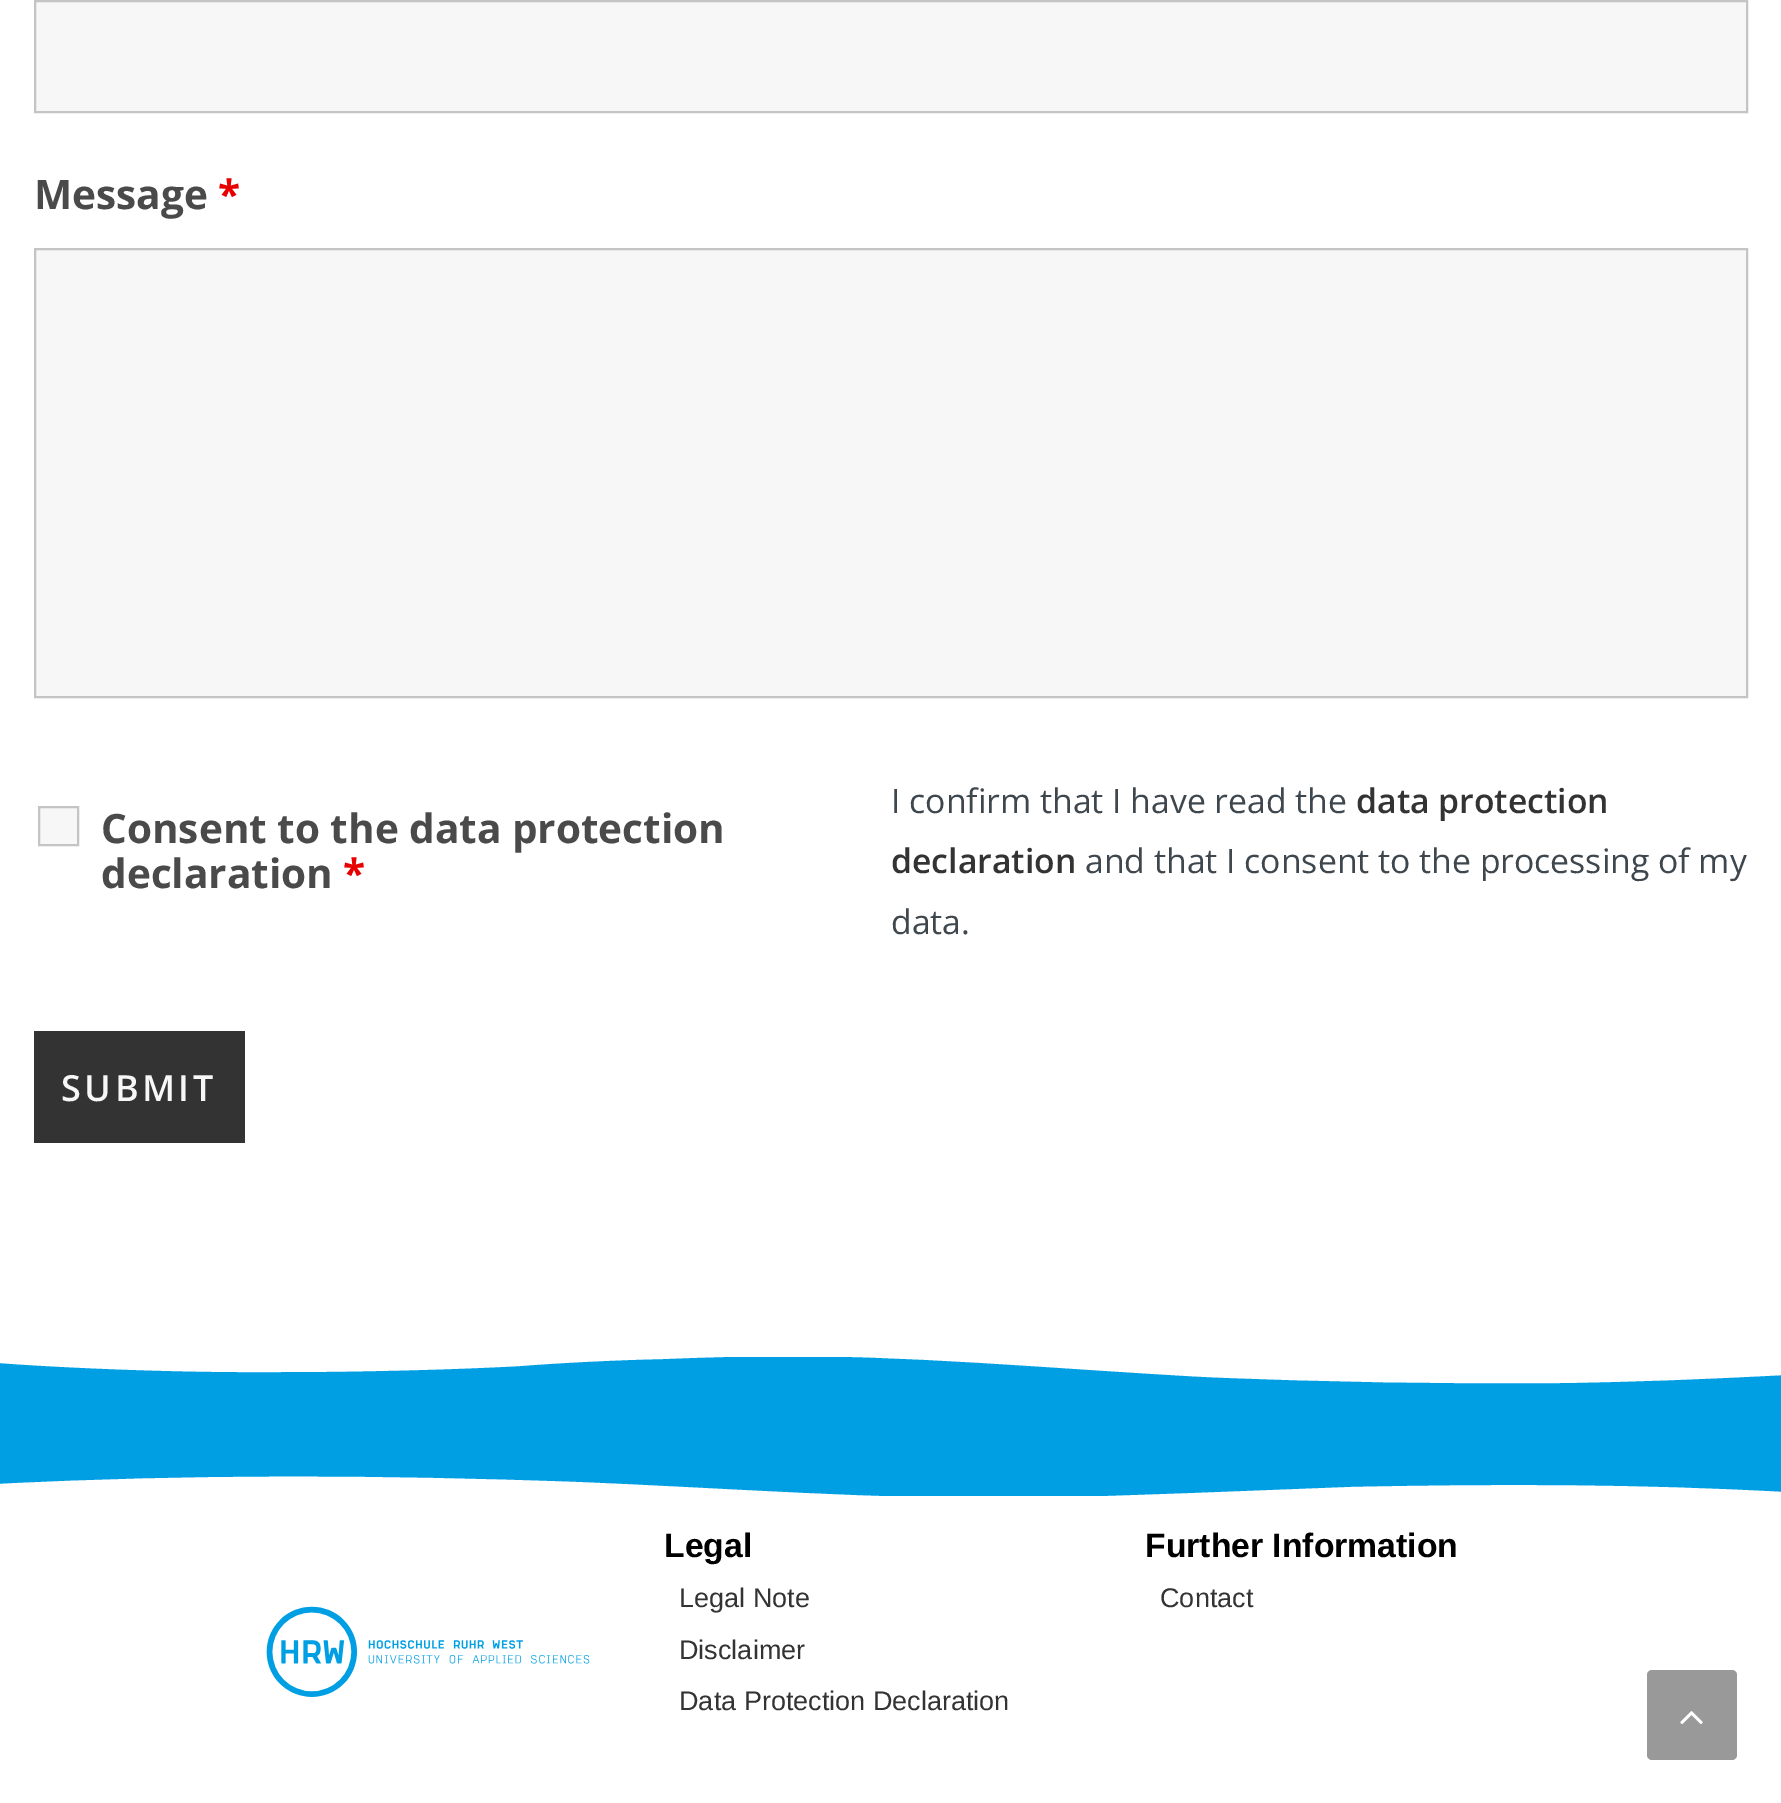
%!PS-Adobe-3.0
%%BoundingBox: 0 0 1781 1803
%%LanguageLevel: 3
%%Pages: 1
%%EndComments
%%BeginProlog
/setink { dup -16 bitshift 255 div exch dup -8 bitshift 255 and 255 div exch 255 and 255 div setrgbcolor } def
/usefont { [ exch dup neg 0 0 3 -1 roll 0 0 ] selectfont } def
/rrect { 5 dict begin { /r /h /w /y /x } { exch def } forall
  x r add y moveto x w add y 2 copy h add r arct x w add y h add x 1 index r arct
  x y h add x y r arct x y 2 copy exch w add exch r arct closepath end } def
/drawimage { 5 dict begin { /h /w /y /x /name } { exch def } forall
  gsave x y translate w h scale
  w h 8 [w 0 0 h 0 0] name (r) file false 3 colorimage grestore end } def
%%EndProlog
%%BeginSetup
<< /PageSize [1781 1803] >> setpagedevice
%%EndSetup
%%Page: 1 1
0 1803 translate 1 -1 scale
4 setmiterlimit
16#FFFFFF setink
0 0 1781 1803 rectfill
16#F7F7F7 setink
35 1 moveto 1747 1 lineto 1747 112 lineto 35 112 lineto closepath gsave fill grestore
16#C4C4C4 setink
2 setlinewidth
stroke
/OpenSans-Bold 40.5 usefont
16#4A4A4A setink
34 209 moveto (Message) show
16#E80000 setink
218 209 moveto (*) show
16#F7F7F7 setink
35 249 moveto 1747 249 lineto 1747 697 lineto 35 697 lineto closepath gsave fill grestore
16#C4C4C4 setink
stroke
16#F7F7F7 setink
39 807 moveto 78 807 lineto 78 845 lineto 39 845 lineto closepath gsave fill grestore
16#C4C4C4 setink
stroke
16#4A4A4A setink
101 843 moveto (Consent to the data protection) show
101 888 moveto (declaration) show
16#E80000 setink
343 888 moveto (*) show
/OpenSans-Regular 33.75 usefont
16#3F474E setink
891 813 moveto (I confirm that I have read the) show
/OpenSans-SemiBold 33.75 usefont
16#333333 setink
1356 813 moveto (data protection) show
891 873 moveto (declaration) show
/OpenSans-Regular 33.75 usefont
16#3F474E setink
1085 873 moveto (and that I consent to the processing of my) show
891 934 moveto (data.) show
16#333333 setink
34 1031 211 112 rectfill
/OpenSans-SemiBold 36 usefont
16#F7F7F7 setink
61 1101 moveto 3.5 0 (SUBMIT) ashow
16#009FE3 setink
0 1357 1781 139 rectfill
gsave
0 1355 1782 29 rectclip
16#FFFFFF setink
752 1356 moveto 903 1354 1055 1369 1206 1377 curveto 1324 1382 1442 1384 1560 1383 curveto 1634 1382 1709 1379 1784 1375 curveto 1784 1354 lineto -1 1354 lineto -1 1363 lineto -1 1363 127 1373 281 1372 curveto 351 1372 447 1370 520 1366 curveto 558 1363 614 1360 663 1359 curveto 711 1357 733 1357 752 1356 curveto closepath fill
grestore
16#FFFFFF setink
1030 1498 moveto 879 1500 727 1488 576 1482 curveto 383 1475 191 1474 -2 1484 curveto -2 1499 lineto 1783 1499 lineto 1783 1492 lineto 1640 1484 1495 1484 1351 1487 curveto 1299 1489 1247 1491 1195 1493 curveto 1140 1495 1085 1497 1030 1498 curveto closepath fill
/LiberationSans-Bold 33.75 usefont
16#000000 setink
664 1557 moveto (Legal) show
/LiberationSans-Regular 27 usefont
16#333333 setink
[
    [(Legal Note) 679 1607]
    [(Disclaimer) 679 1659]
    [(Data Protection Declaration) 679 1710]
] { aload pop moveto show } forall
/LiberationSans-Bold 33.75 usefont
16#000000 setink
1145 1557 moveto (Further Information) show
/LiberationSans-Regular 27 usefont
16#333333 setink
1160 1607 moveto (Contact) show
(img1.raw) 266 1606 324 91 drawimage
16#999999 setink
1647 1670 90 90 5 rrect fill
(img2.raw) 1680 1711 23 14 drawimage
showpage
%%EOF
